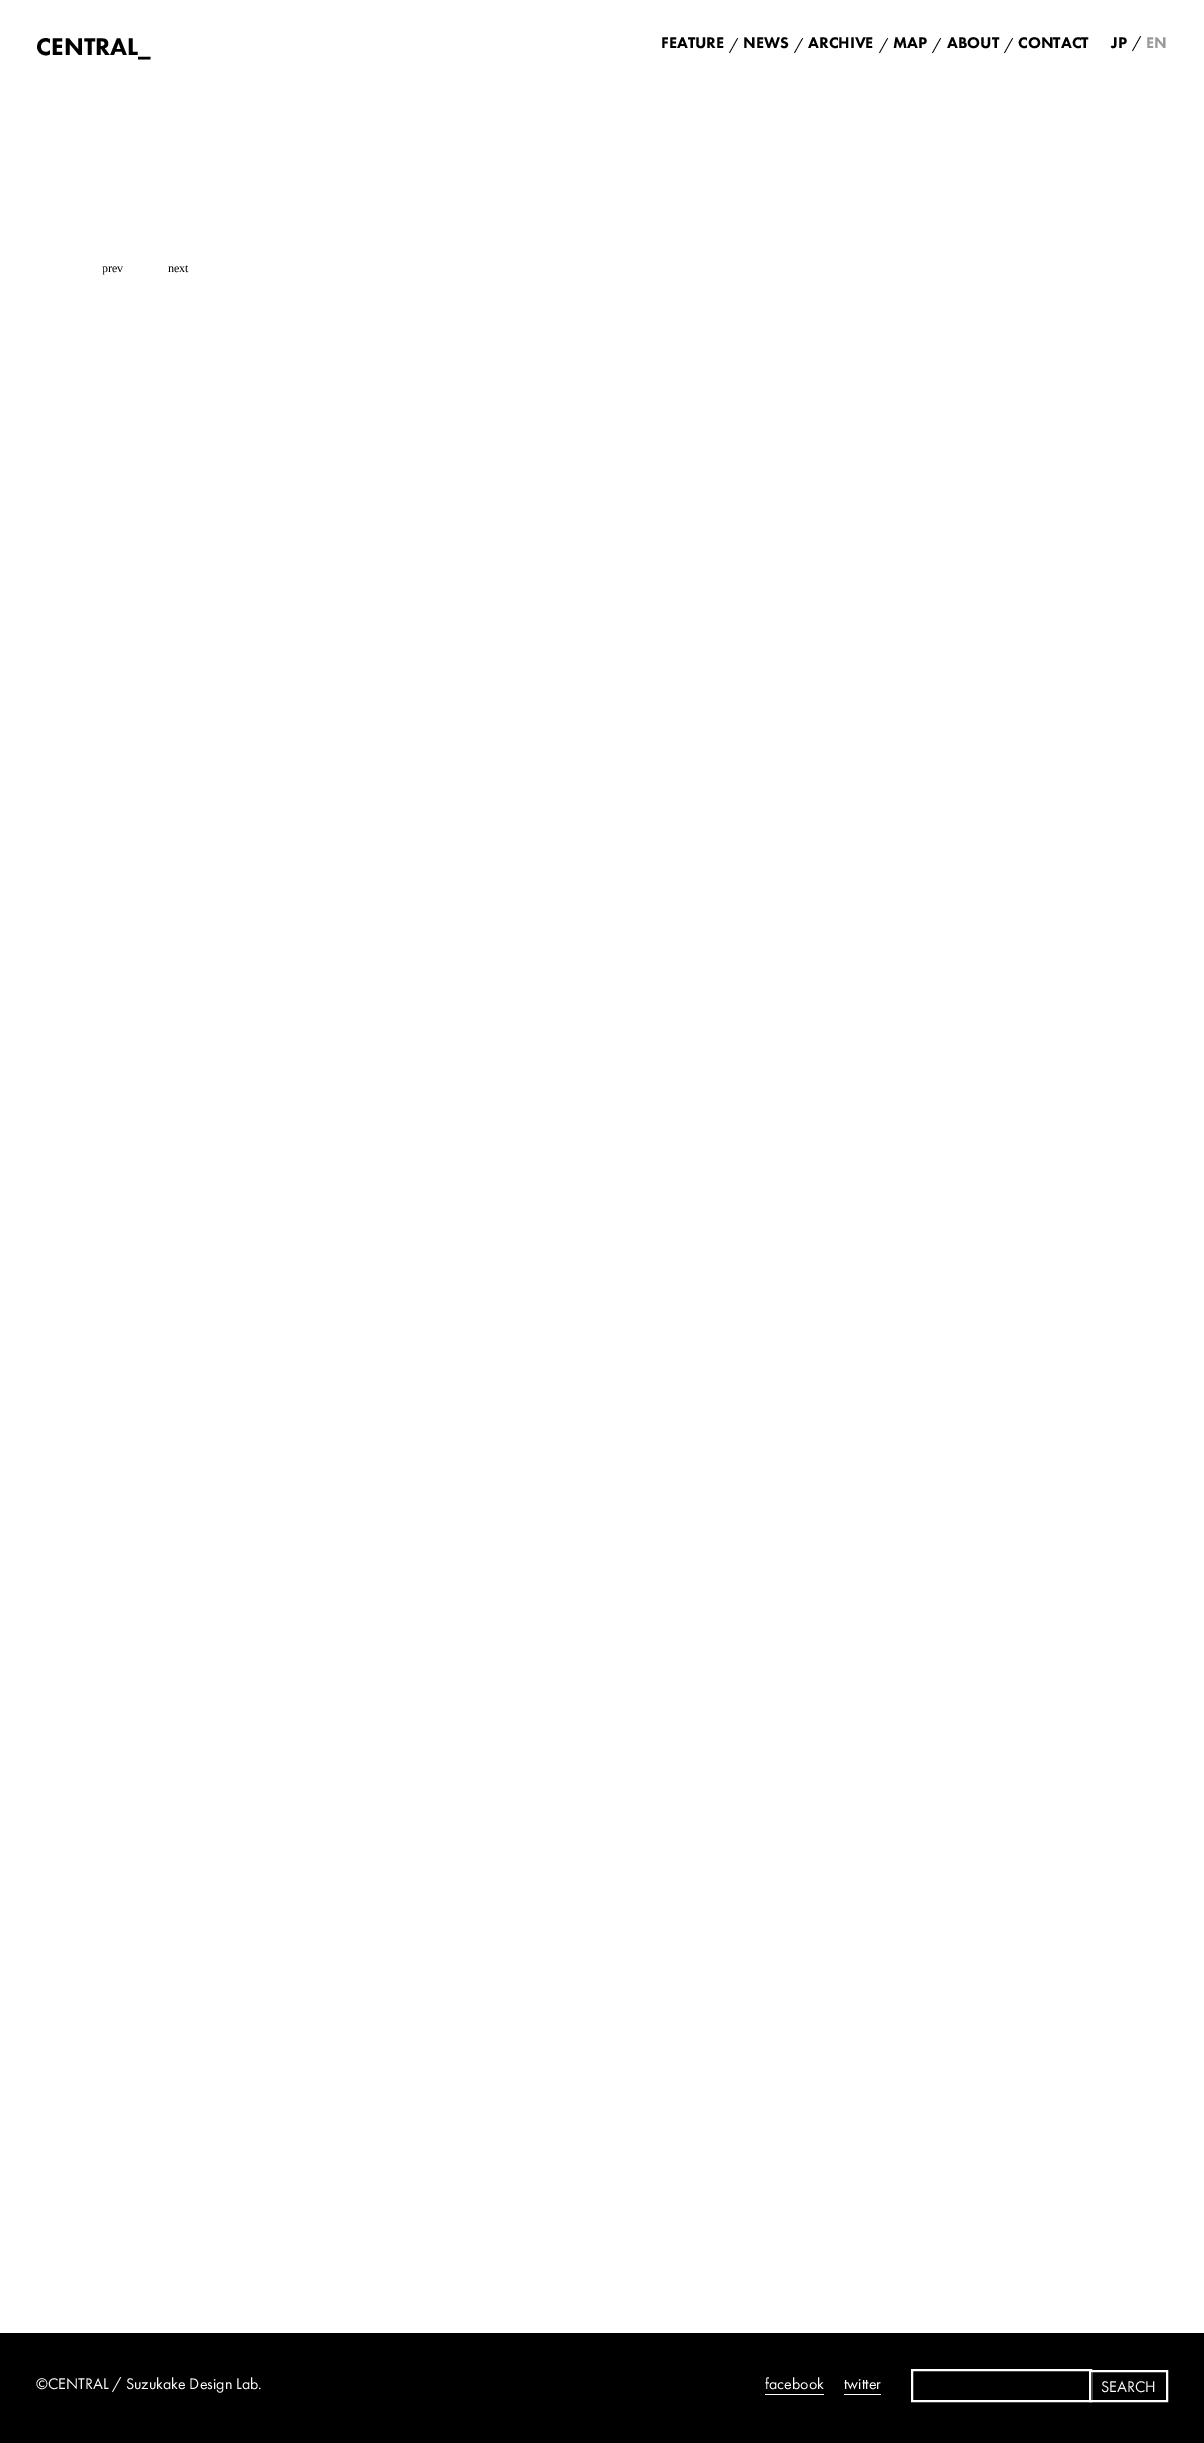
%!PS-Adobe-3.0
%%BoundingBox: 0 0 1204 2443
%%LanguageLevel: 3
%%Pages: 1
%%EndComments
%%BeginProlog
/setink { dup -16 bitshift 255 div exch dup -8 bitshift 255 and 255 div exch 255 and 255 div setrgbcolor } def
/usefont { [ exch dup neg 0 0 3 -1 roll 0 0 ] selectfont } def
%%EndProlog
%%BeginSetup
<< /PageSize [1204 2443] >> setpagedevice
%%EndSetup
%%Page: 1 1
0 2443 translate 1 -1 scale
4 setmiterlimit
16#FFFFFF setink
0 0 1204 2443 rectfill
/FuturaPT-Black 25 usefont
16#000000 setink
36 55 moveto (CENTRAL_) show
/FuturaPT-Black 16 usefont
661 48 moveto (FEATURE) show
/FuturaPT-Regular 16 usefont
729 50 moveto (/) show
/FuturaPT-Black 16 usefont
743 48 moveto (NEWS) show
/FuturaPT-Regular 16 usefont
794 50 moveto (/) show
/FuturaPT-Black 16 usefont
808 48 moveto (ARCHIVE) show
/FuturaPT-Regular 16 usefont
879 50 moveto (/) show
/FuturaPT-Black 16 usefont
893 48 moveto (MAP) show
/FuturaPT-Regular 16 usefont
932 50 moveto (/) show
/FuturaPT-Black 16 usefont
947 48 moveto (ABOUT) show
/FuturaPT-Regular 16 usefont
1004 50 moveto (/) show
/FuturaPT-Black 16 usefont
1018 48 moveto (CONTACT) show
1111 48 moveto (JP) show
/FuturaPT-Regular 16 usefont
1132 48 moveto (/) show
/FuturaPT-Black 16 usefont
16#999999 setink
1146 48 moveto (EN) show
/LiberationSerif-Regular 12 usefont
16#000000 setink
102 272 moveto (prev) show
168 272 moveto (next) show
0 2333 1204 110 rectfill
/FuturaPT-Regular 16 usefont
16#FFFFFF setink
36 2389 moveto (©CENTRAL / Suzukake Design Lab.) show
765 2389 moveto (facebook) show
765 2394 59 1 rectfill
844 2389 moveto (twitter) show
844 2394 37 1 rectfill
2 setlinewidth
912 2370 179 31 rectstroke
16#000000 setink
1091 2372 1 28 rectfill
16#FFFFFF setink
1090 2371 77 30 rectstroke
1101 2392 moveto (SEARCH) show
showpage
%%EOF
